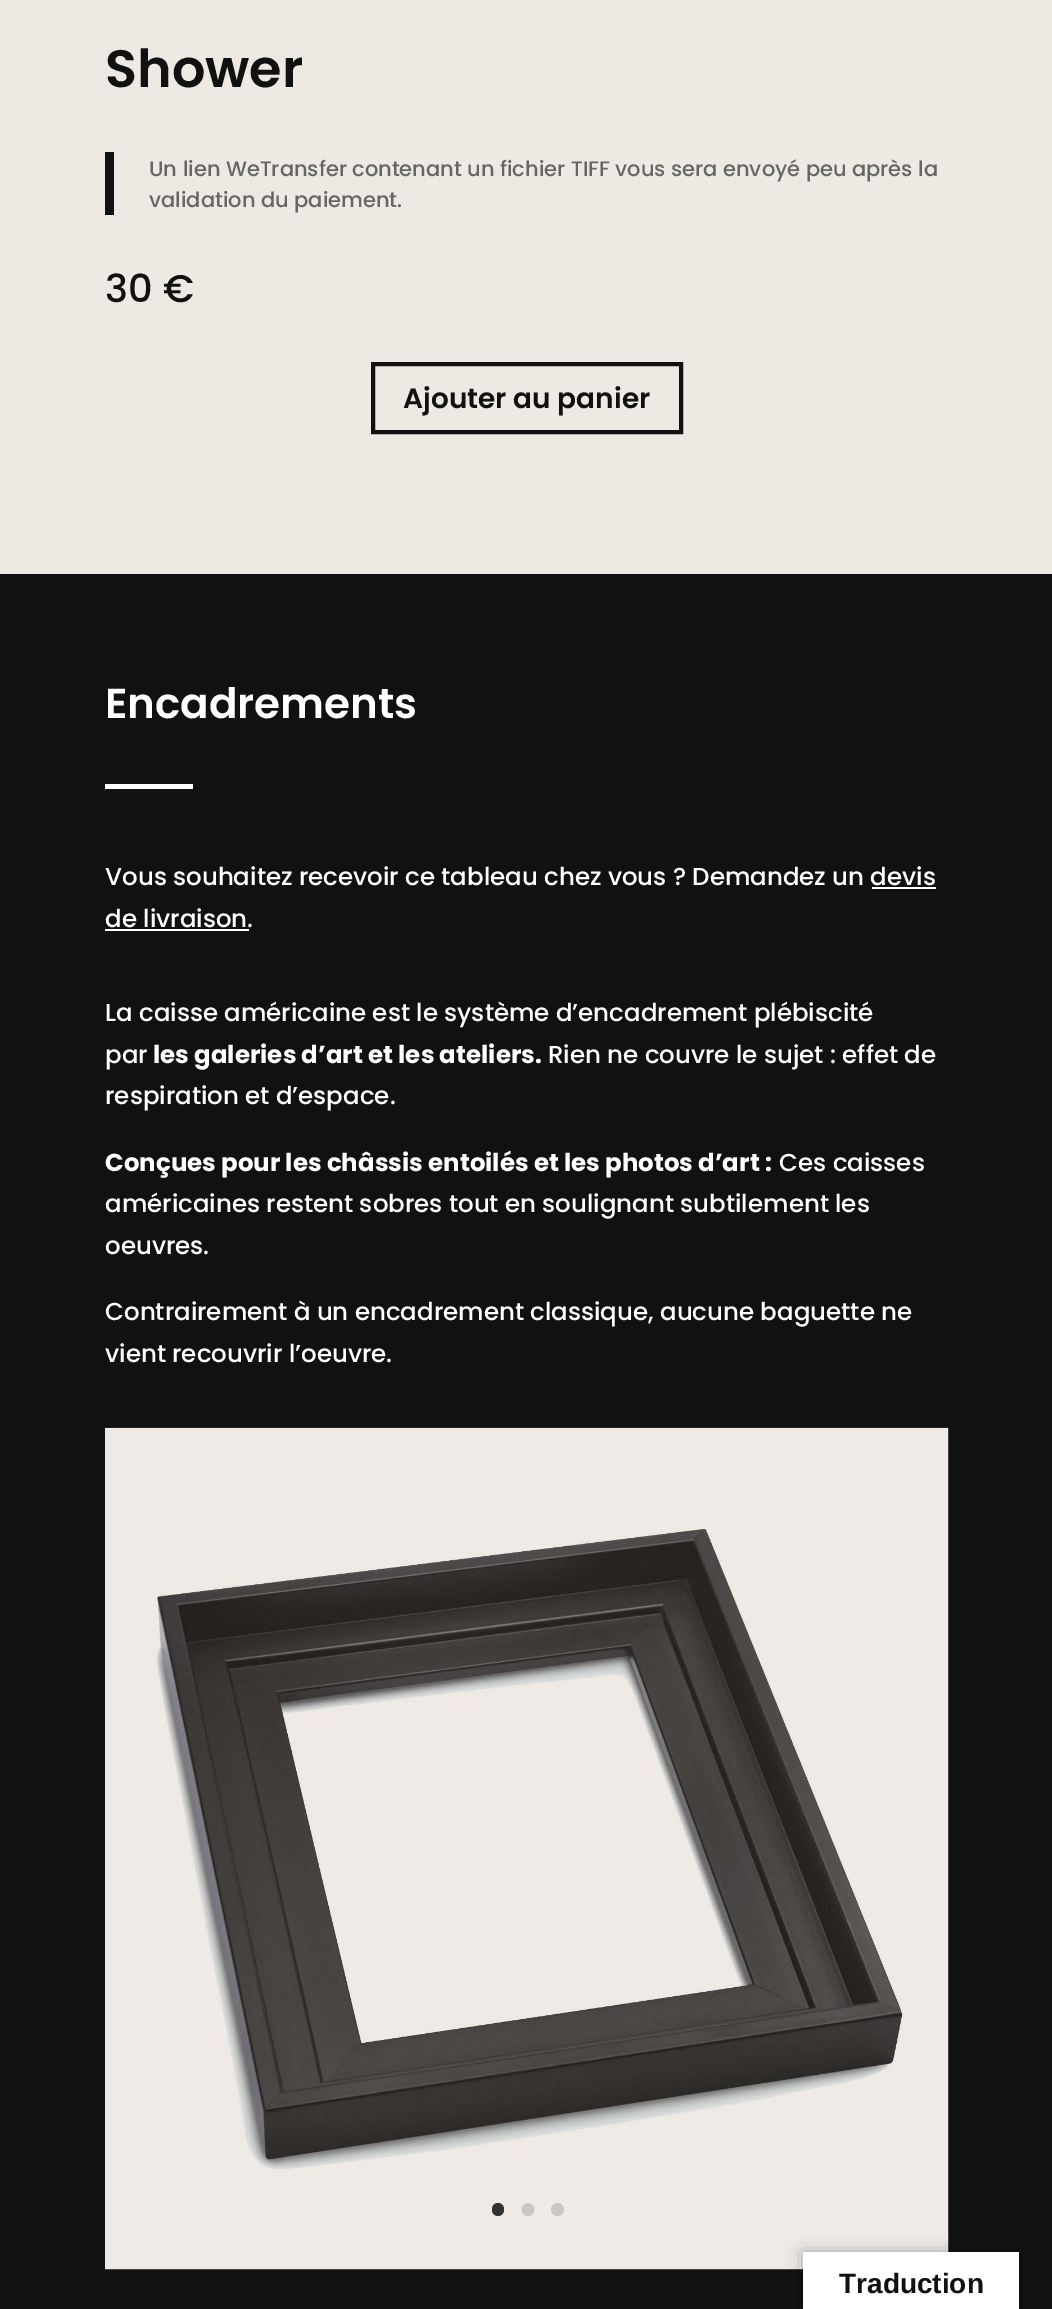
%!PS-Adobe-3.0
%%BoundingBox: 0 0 1052 2309
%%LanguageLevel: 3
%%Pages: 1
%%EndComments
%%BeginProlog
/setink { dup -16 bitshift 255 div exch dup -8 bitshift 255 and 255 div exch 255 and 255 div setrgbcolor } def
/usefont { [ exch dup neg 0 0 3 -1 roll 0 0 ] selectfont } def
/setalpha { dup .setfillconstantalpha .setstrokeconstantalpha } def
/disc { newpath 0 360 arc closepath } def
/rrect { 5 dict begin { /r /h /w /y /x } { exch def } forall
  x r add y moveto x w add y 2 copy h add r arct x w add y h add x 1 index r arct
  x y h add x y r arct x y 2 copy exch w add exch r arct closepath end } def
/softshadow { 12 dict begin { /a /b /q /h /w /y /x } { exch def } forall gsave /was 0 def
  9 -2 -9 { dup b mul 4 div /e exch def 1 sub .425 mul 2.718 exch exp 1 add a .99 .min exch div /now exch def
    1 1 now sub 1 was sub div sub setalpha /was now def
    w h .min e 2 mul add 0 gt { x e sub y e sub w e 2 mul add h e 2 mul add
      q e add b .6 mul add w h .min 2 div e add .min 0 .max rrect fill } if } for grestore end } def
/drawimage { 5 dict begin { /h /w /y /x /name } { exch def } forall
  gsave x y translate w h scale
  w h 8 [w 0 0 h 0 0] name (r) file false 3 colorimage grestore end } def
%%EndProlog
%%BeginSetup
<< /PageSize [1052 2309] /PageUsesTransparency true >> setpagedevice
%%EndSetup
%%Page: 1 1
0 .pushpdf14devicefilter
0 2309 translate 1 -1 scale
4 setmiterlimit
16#EFE9E4 setink
0 0 1052 2309 rectfill
/Poppins-SemiBold 52.5 usefont
16#111111 setink
105 87 moveto (Shower) show
105 152 9 63 rectfill
/Poppins-Medium 21 usefont
16#666666 setink
149 176 moveto (Un lien WeTransfer contenant un fichier TIFF vous sera envoyé peu après la) show
149 207 moveto (validation du paiement.) show
/Poppins-Medium 38.5 usefont
16#111111 setink
105 302 moveto (30 €) show
4 setlinewidth
373 364 308 68 rectstroke
/Poppins-SemiBold 28 usefont
403 408 moveto (Ajouter au panier) show
0 574 1052 1735 rectfill
/Poppins-SemiBold 42 usefont
16#FFFFFF setink
105 718 moveto (Encadrements) show
105 784 88 5 rectfill
/Poppins-Medium 24.5 usefont
105 885 moveto (Vous souhaitez recevoir ce tableau chez vous ? Demandez un devis) show
105 927 moveto (de livraison.) show
872 887 64 2 rectfill
105 929 144 2 rectfill
105 1021 moveto (La caisse américaine est le système d’encadrement plébiscité) show
105 1063 moveto (par) show
/Poppins-Bold 24.5 usefont
153 1063 moveto (les galeries d’art et les ateliers.) show
/Poppins-Medium 24.5 usefont
548 1063 moveto (Rien ne couvre le sujet : effet de) show
105 1104 moveto (respiration et d’espace.) show
/Poppins-Bold 24.5 usefont
105 1171 moveto (Conçues pour les châssis entoilés et les photos d’art :) show
/Poppins-Medium 24.5 usefont
[
    [(Ces caisses) 779 1171]
    [(américaines restent sobres tout en soulignant subtilement les) 105 1212]
    [(oeuvres.) 105 1254]
    [(Contrairement à un encadrement classique, aucune baguette ne) 105 1320]
    [(vient recouvrir l’oeuvre.) 105 1362]
] { aload pop moveto show } forall
(img1.raw) 105 1427 844 843 drawimage
16#333333 setink
492 2203 12 13 6 rrect fill
16#CBC7C4 setink
522 2203 12 13 6 rrect fill
557.5 2209.5 6.5 disc fill
16#000000 setink
803 2252 216 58 0 8 0.3 softshadow
16#FFFFFF setink
803 2252 216 57 rectfill
/LiberationSans-Bold 28 usefont
16#111111 setink
839 2293 moveto (Traduction) show
.poppdf14devicefilter showpage
%%EOF
